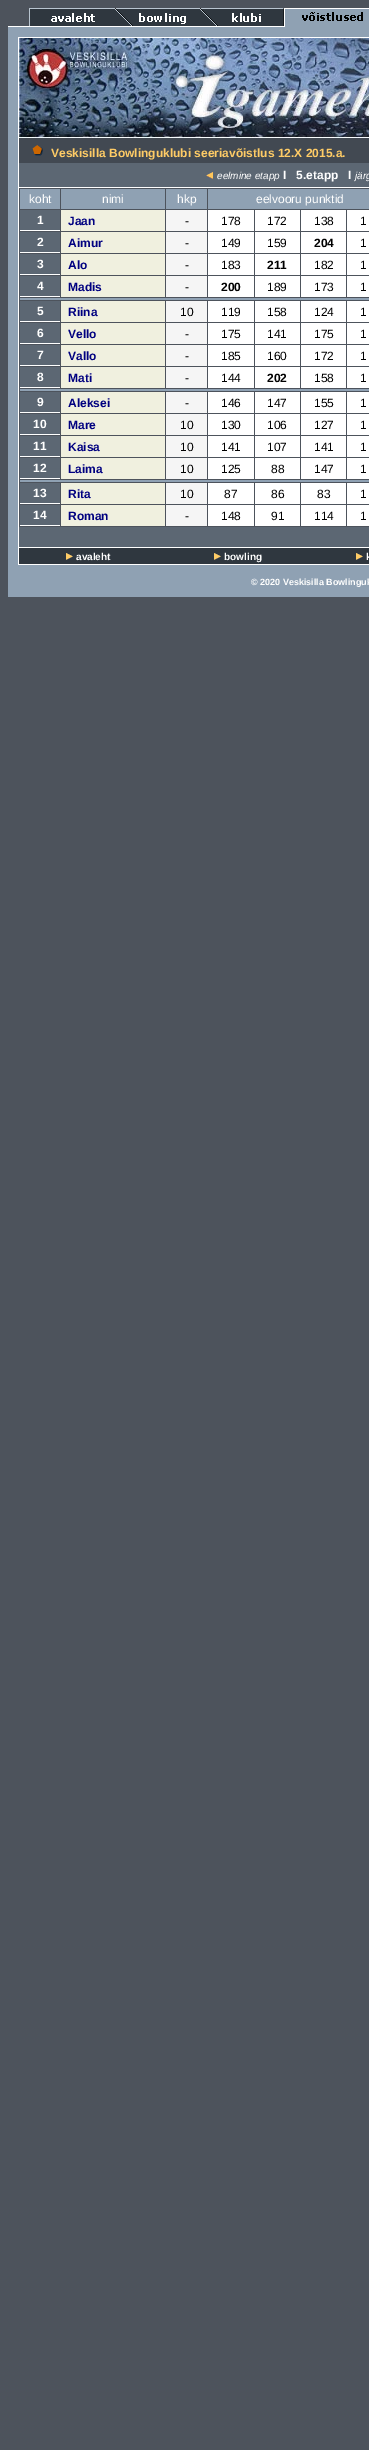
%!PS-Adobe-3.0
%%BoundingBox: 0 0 369 2450
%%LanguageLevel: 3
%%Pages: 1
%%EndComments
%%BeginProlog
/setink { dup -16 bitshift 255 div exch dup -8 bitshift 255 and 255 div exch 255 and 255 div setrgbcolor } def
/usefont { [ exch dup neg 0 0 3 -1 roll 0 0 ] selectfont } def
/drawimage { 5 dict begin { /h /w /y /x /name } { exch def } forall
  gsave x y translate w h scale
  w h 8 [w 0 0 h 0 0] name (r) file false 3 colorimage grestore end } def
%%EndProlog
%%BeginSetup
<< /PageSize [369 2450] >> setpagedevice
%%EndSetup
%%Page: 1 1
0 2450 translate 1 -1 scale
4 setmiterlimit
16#4D535C setink
0 0 369 2450 rectfill
(img1.raw) 8 8 361 19 drawimage
[
    [8 27 361 570 16#8FA1B3]
    [18 37 351 1 16#FFFFFF]
    [18 564 351 1 16#FFFFFF]
    [18 37 1 528 16#FFFFFF]
] { aload pop setink rectfill } forall
(img2.raw) 19 38 350 100 drawimage
16#424952 setink
19 138 350 25 rectfill
(img3.raw) 32 145 11 11 drawimage
/LiberationSans-Bold 12 usefont
16#FFCC66 setink
51 157 moveto (Veskisilla Bowlinguklubi seeriavõistlus 12.X 2015.a.) show
16#5C6773 setink
19 163 350 24 rectfill
16#FFFFFF setink
18 187 351 1 rectfill
(img4.raw) 206 172 7 7 drawimage
/LiberationSans-Italic 10 usefont
217 179 moveto (eelmine etapp) show
/LiberationSans-Bold 12 usefont
283 179 moveto (I   5.etapp   I) show
/LiberationSans-Italic 10 usefont
355 179 moveto (järg) show
16#4D535C setink
19 188 350 339 rectfill
16#8FA1B3 setink
20 189 40 20 rectfill
/LiberationSans-Regular 12 usefont
16#FFFFFF setink
29 203 moveto (koht) show
16#8FA1B3 setink
61 189 104 20 rectfill
16#FFFFFF setink
102 203 moveto (nimi) show
16#8FA1B3 setink
166 189 41 20 rectfill
16#FFFFFF setink
177 203 moveto (hkp) show
16#8FA1B3 setink
208 189 161 20 rectfill
16#FFFFFF setink
256 203 moveto (eelvooru punktid) show
16#5C6773 setink
20 210 40 20 rectfill
16#FFFFFF setink
20 230 40 1 rectfill
/LiberationSans-Bold 12 usefont
37 224 moveto (1) show
16#F0F0DF setink
61 210 104 21 rectfill
16#000080 setink
68 225 moveto (Jaan) show
16#F5F5F5 setink
166 210 41 21 rectfill
/LiberationSans-Regular 12 usefont
16#000000 setink
185 225 moveto (-) show
16#FFFFFF setink
208 210 46 21 rectfill
16#000000 setink
221 225 moveto (178) show
16#FFFFFF setink
255 210 45 21 rectfill
16#000000 setink
267 225 moveto (172) show
16#FFFFFF setink
301 210 45 21 rectfill
16#000000 setink
314 225 moveto (138) show
16#FFFFFF setink
347 210 22 21 rectfill
16#000000 setink
360 225 moveto (1) show
16#5C6773 setink
20 232 40 20 rectfill
16#FFFFFF setink
20 252 40 1 rectfill
/LiberationSans-Bold 12 usefont
37 246 moveto (2) show
16#F0F0DF setink
61 232 104 21 rectfill
16#000080 setink
68 247 moveto (Aimur) show
16#F5F5F5 setink
166 232 41 21 rectfill
/LiberationSans-Regular 12 usefont
16#000000 setink
185 247 moveto (-) show
16#FFFFFF setink
208 232 46 21 rectfill
16#000000 setink
221 247 moveto (149) show
16#FFFFFF setink
255 232 45 21 rectfill
16#000000 setink
267 247 moveto (159) show
16#FFFFFF setink
301 232 45 21 rectfill
/LiberationSans-Bold 12 usefont
16#000000 setink
314 247 moveto (204) show
16#FFFFFF setink
347 232 22 21 rectfill
/LiberationSans-Regular 12 usefont
16#000000 setink
360 247 moveto (1) show
16#5C6773 setink
20 254 40 20 rectfill
16#FFFFFF setink
20 274 40 1 rectfill
/LiberationSans-Bold 12 usefont
37 268 moveto (3) show
16#F0F0DF setink
61 254 104 21 rectfill
16#000080 setink
68 269 moveto (Alo) show
16#F5F5F5 setink
166 254 41 21 rectfill
/LiberationSans-Regular 12 usefont
16#000000 setink
185 269 moveto (-) show
16#FFFFFF setink
208 254 46 21 rectfill
16#000000 setink
221 269 moveto (183) show
16#FFFFFF setink
255 254 45 21 rectfill
/LiberationSans-Bold 12 usefont
16#000000 setink
267 269 moveto (211) show
16#FFFFFF setink
301 254 45 21 rectfill
/LiberationSans-Regular 12 usefont
16#000000 setink
314 269 moveto (182) show
16#FFFFFF setink
347 254 22 21 rectfill
16#000000 setink
360 269 moveto (1) show
16#5C6773 setink
20 276 40 20 rectfill
16#FFFFFF setink
20 296 40 1 rectfill
/LiberationSans-Bold 12 usefont
37 290 moveto (4) show
16#F0F0DF setink
61 276 104 21 rectfill
16#000080 setink
68 291 moveto (Madis) show
16#F5F5F5 setink
166 276 41 21 rectfill
/LiberationSans-Regular 12 usefont
16#000000 setink
185 291 moveto (-) show
16#FFFFFF setink
208 276 46 21 rectfill
/LiberationSans-Bold 12 usefont
16#000000 setink
221 291 moveto (200) show
16#FFFFFF setink
255 276 45 21 rectfill
/LiberationSans-Regular 12 usefont
16#000000 setink
267 291 moveto (189) show
16#FFFFFF setink
301 276 45 21 rectfill
16#000000 setink
314 291 moveto (173) show
16#FFFFFF setink
347 276 22 21 rectfill
16#000000 setink
360 291 moveto (1) show
[
    [20 298 349 2 16#8FA1B3]
    [20 301 40 20 16#5C6773]
    [20 321 40 1 16#FFFFFF]
] { aload pop setink rectfill } forall
/LiberationSans-Bold 12 usefont
37 315 moveto (5) show
16#F0F0DF setink
61 301 104 21 rectfill
16#000080 setink
68 316 moveto (Riina) show
16#F5F5F5 setink
166 301 41 21 rectfill
/LiberationSans-Regular 12 usefont
16#000000 setink
180 316 moveto (10) show
16#FFFFFF setink
208 301 46 21 rectfill
16#000000 setink
221 316 moveto (119) show
16#FFFFFF setink
255 301 45 21 rectfill
16#000000 setink
267 316 moveto (158) show
16#FFFFFF setink
301 301 45 21 rectfill
16#000000 setink
314 316 moveto (124) show
16#FFFFFF setink
347 301 22 21 rectfill
16#000000 setink
360 316 moveto (1) show
16#5C6773 setink
20 323 40 20 rectfill
16#FFFFFF setink
20 343 40 1 rectfill
/LiberationSans-Bold 12 usefont
37 337 moveto (6) show
16#F0F0DF setink
61 323 104 21 rectfill
16#000080 setink
68 338 moveto (Vello) show
16#F5F5F5 setink
166 323 41 21 rectfill
/LiberationSans-Regular 12 usefont
16#000000 setink
185 338 moveto (-) show
16#FFFFFF setink
208 323 46 21 rectfill
16#000000 setink
221 338 moveto (175) show
16#FFFFFF setink
255 323 45 21 rectfill
16#000000 setink
267 338 moveto (141) show
16#FFFFFF setink
301 323 45 21 rectfill
16#000000 setink
314 338 moveto (175) show
16#FFFFFF setink
347 323 22 21 rectfill
16#000000 setink
360 338 moveto (1) show
16#5C6773 setink
20 345 40 20 rectfill
16#FFFFFF setink
20 365 40 1 rectfill
/LiberationSans-Bold 12 usefont
37 359 moveto (7) show
16#F0F0DF setink
61 345 104 21 rectfill
16#000080 setink
68 360 moveto (Vallo) show
16#F5F5F5 setink
166 345 41 21 rectfill
/LiberationSans-Regular 12 usefont
16#000000 setink
185 360 moveto (-) show
16#FFFFFF setink
208 345 46 21 rectfill
16#000000 setink
221 360 moveto (185) show
16#FFFFFF setink
255 345 45 21 rectfill
16#000000 setink
267 360 moveto (160) show
16#FFFFFF setink
301 345 45 21 rectfill
16#000000 setink
314 360 moveto (172) show
16#FFFFFF setink
347 345 22 21 rectfill
16#000000 setink
360 360 moveto (1) show
16#5C6773 setink
20 367 40 20 rectfill
16#FFFFFF setink
20 387 40 1 rectfill
/LiberationSans-Bold 12 usefont
37 381 moveto (8) show
16#F0F0DF setink
61 367 104 21 rectfill
16#000080 setink
68 382 moveto (Mati) show
16#F5F5F5 setink
166 367 41 21 rectfill
/LiberationSans-Regular 12 usefont
16#000000 setink
185 382 moveto (-) show
16#FFFFFF setink
208 367 46 21 rectfill
16#000000 setink
221 382 moveto (144) show
16#FFFFFF setink
255 367 45 21 rectfill
/LiberationSans-Bold 12 usefont
16#000000 setink
267 382 moveto (202) show
16#FFFFFF setink
301 367 45 21 rectfill
/LiberationSans-Regular 12 usefont
16#000000 setink
314 382 moveto (158) show
16#FFFFFF setink
347 367 22 21 rectfill
16#000000 setink
360 382 moveto (1) show
[
    [20 389 349 2 16#8FA1B3]
    [20 392 40 20 16#5C6773]
    [20 412 40 1 16#FFFFFF]
] { aload pop setink rectfill } forall
/LiberationSans-Bold 12 usefont
37 406 moveto (9) show
16#F0F0DF setink
61 392 104 21 rectfill
16#000080 setink
68 407 moveto (Aleksei) show
16#F5F5F5 setink
166 392 41 21 rectfill
/LiberationSans-Regular 12 usefont
16#000000 setink
185 407 moveto (-) show
16#FFFFFF setink
208 392 46 21 rectfill
16#000000 setink
221 407 moveto (146) show
16#FFFFFF setink
255 392 45 21 rectfill
16#000000 setink
267 407 moveto (147) show
16#FFFFFF setink
301 392 45 21 rectfill
16#000000 setink
314 407 moveto (155) show
16#FFFFFF setink
347 392 22 21 rectfill
16#000000 setink
360 407 moveto (1) show
16#5C6773 setink
20 414 40 20 rectfill
16#FFFFFF setink
20 434 40 1 rectfill
/LiberationSans-Bold 12 usefont
33 428 moveto (10) show
16#F0F0DF setink
61 414 104 21 rectfill
16#000080 setink
68 429 moveto (Mare) show
16#F5F5F5 setink
166 414 41 21 rectfill
/LiberationSans-Regular 12 usefont
16#000000 setink
180 429 moveto (10) show
16#FFFFFF setink
208 414 46 21 rectfill
16#000000 setink
221 429 moveto (130) show
16#FFFFFF setink
255 414 45 21 rectfill
16#000000 setink
267 429 moveto (106) show
16#FFFFFF setink
301 414 45 21 rectfill
16#000000 setink
314 429 moveto (127) show
16#FFFFFF setink
347 414 22 21 rectfill
16#000000 setink
360 429 moveto (1) show
16#5C6773 setink
20 436 40 20 rectfill
16#FFFFFF setink
20 456 40 1 rectfill
/LiberationSans-Bold 12 usefont
33 450 moveto (11) show
16#F0F0DF setink
61 436 104 21 rectfill
16#000080 setink
68 451 moveto (Kaisa) show
16#F5F5F5 setink
166 436 41 21 rectfill
/LiberationSans-Regular 12 usefont
16#000000 setink
180 451 moveto (10) show
16#FFFFFF setink
208 436 46 21 rectfill
16#000000 setink
221 451 moveto (141) show
16#FFFFFF setink
255 436 45 21 rectfill
16#000000 setink
267 451 moveto (107) show
16#FFFFFF setink
301 436 45 21 rectfill
16#000000 setink
314 451 moveto (141) show
16#FFFFFF setink
347 436 22 21 rectfill
16#000000 setink
360 451 moveto (1) show
16#5C6773 setink
20 458 40 20 rectfill
16#FFFFFF setink
20 478 40 1 rectfill
/LiberationSans-Bold 12 usefont
33 472 moveto (12) show
16#F0F0DF setink
61 458 104 21 rectfill
16#000080 setink
68 473 moveto (Laima) show
16#F5F5F5 setink
166 458 41 21 rectfill
/LiberationSans-Regular 12 usefont
16#000000 setink
180 473 moveto (10) show
16#FFFFFF setink
208 458 46 21 rectfill
16#000000 setink
221 473 moveto (125) show
16#FFFFFF setink
255 458 45 21 rectfill
16#000000 setink
271 473 moveto (88) show
16#FFFFFF setink
301 458 45 21 rectfill
16#000000 setink
314 473 moveto (147) show
16#FFFFFF setink
347 458 22 21 rectfill
16#000000 setink
360 473 moveto (1) show
[
    [20 480 349 2 16#8FA1B3]
    [20 483 40 20 16#5C6773]
    [20 503 40 1 16#FFFFFF]
] { aload pop setink rectfill } forall
/LiberationSans-Bold 12 usefont
33 497 moveto (13) show
16#F0F0DF setink
61 483 104 21 rectfill
16#000080 setink
68 498 moveto (Rita) show
16#F5F5F5 setink
166 483 41 21 rectfill
/LiberationSans-Regular 12 usefont
16#000000 setink
180 498 moveto (10) show
16#FFFFFF setink
208 483 46 21 rectfill
16#000000 setink
224 498 moveto (87) show
16#FFFFFF setink
255 483 45 21 rectfill
16#000000 setink
271 498 moveto (86) show
16#FFFFFF setink
301 483 45 21 rectfill
16#000000 setink
317 498 moveto (83) show
16#FFFFFF setink
347 483 22 21 rectfill
16#000000 setink
360 498 moveto (1) show
16#5C6773 setink
20 505 40 20 rectfill
16#FFFFFF setink
20 525 40 1 rectfill
/LiberationSans-Bold 12 usefont
33 519 moveto (14) show
16#F0F0DF setink
61 505 104 21 rectfill
16#000080 setink
68 520 moveto (Roman) show
16#F5F5F5 setink
166 505 41 21 rectfill
/LiberationSans-Regular 12 usefont
16#000000 setink
185 520 moveto (-) show
16#FFFFFF setink
208 505 46 21 rectfill
16#000000 setink
221 520 moveto (148) show
16#FFFFFF setink
255 505 45 21 rectfill
16#000000 setink
271 520 moveto (91) show
16#FFFFFF setink
301 505 45 21 rectfill
16#000000 setink
314 520 moveto (114) show
16#FFFFFF setink
347 505 22 21 rectfill
16#000000 setink
360 520 moveto (1) show
[
    [19 527 350 20 16#5C6773]
    [18 547 351 1 16#FFFFFF]
    [19 548 350 16 16#2F373F]
] { aload pop setink rectfill } forall
(img5.raw) 66 553 7 7 drawimage
/LiberationSans-Bold 10 usefont
16#FFFFFF setink
76 560 moveto (avaleht) show
(img5.raw) 214 553 7 7 drawimage
224 560 moveto (bowling) show
(img5.raw) 356 553 7 7 drawimage
366 560 moveto (k) show
/LiberationSans-Bold 9 usefont
251 585 moveto (© 2020 Veskisilla Bowlinguk) show
showpage
%%EOF
